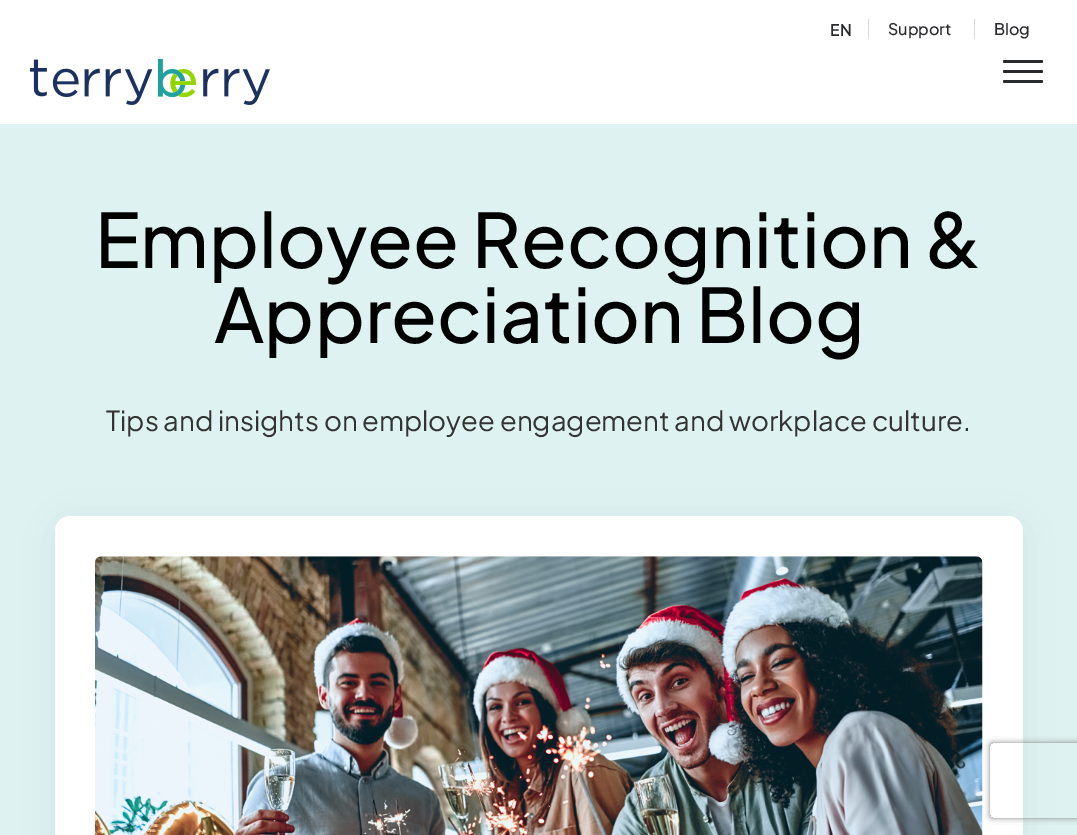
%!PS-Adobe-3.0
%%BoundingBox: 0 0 1077 835
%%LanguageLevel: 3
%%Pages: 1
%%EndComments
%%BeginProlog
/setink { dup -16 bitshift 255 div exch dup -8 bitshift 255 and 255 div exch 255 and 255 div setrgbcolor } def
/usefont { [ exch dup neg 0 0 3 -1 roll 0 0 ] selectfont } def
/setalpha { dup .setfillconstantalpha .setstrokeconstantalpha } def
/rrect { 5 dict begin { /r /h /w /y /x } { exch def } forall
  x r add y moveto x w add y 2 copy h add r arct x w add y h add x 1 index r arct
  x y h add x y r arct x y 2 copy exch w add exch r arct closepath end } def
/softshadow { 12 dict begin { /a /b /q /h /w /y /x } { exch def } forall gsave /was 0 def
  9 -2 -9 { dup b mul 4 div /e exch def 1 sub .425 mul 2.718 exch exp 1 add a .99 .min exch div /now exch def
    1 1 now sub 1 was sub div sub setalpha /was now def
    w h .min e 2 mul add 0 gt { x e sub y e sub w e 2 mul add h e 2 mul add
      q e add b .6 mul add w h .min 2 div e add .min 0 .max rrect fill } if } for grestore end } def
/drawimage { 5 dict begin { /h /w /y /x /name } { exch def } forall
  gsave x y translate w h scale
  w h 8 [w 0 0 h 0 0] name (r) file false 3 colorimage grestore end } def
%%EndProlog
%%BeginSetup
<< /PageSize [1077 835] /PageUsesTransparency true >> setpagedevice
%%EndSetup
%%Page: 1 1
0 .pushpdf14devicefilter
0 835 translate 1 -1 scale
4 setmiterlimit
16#DEF2F1 setink
0 0 1077 835 rectfill
16#FFFFFF setink
0 0 1077 124 rectfill
/PlusJakartaSans-SemiBold 16 usefont
16#292A2D setink
830 36 moveto (EN) show
16#D9D9D9 setink
868 19 1 20 rectfill
/PlusJakartaSans-Medium 16 usefont
16#292A2D setink
888 35 moveto (Support) show
16#D9D9D9 setink
974 19 1 20 rectfill
16#292A2D setink
994 35 moveto (Blog) show
(img1.raw) 30 59 240 46 drawimage
1003 60 40 3 1.5 rrect fill
1003 70 40 3 1.5 rrect fill
1003 80 40 3 1.5 rrect fill
/PlusJakartaSans-Medium 75 usefont
16#000000 setink
95 268 moveto (Employee Recognition &) show
214 343 moveto (Appreciation Blog) show
/PlusJakartaSans-Regular 27.5 usefont
16#333333 setink
106 431 moveto (Tips and insights on employee engagement and workplace culture.) show
16#000000 setink
55 521 968 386 15 19 0.05 softshadow
16#FFFFFF setink
55 516 968 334 15 rrect fill
(img2.raw) 95 556 888 279 drawimage
gsave
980 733 moveto 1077 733 lineto 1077 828 lineto 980 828 lineto closepath 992.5 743 moveto 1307.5 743 lineto 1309 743 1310 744 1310 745.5 curveto 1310 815.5 lineto 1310 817 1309 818 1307.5 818 curveto 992.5 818 lineto 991 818 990 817 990 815.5 curveto 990 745.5 lineto 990 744 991 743 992.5 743 curveto closepath eoclip newpath
16#808080 setink
990 743 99 75 2.5 3 1 softshadow
grestore
.poppdf14devicefilter showpage
%%EOF
